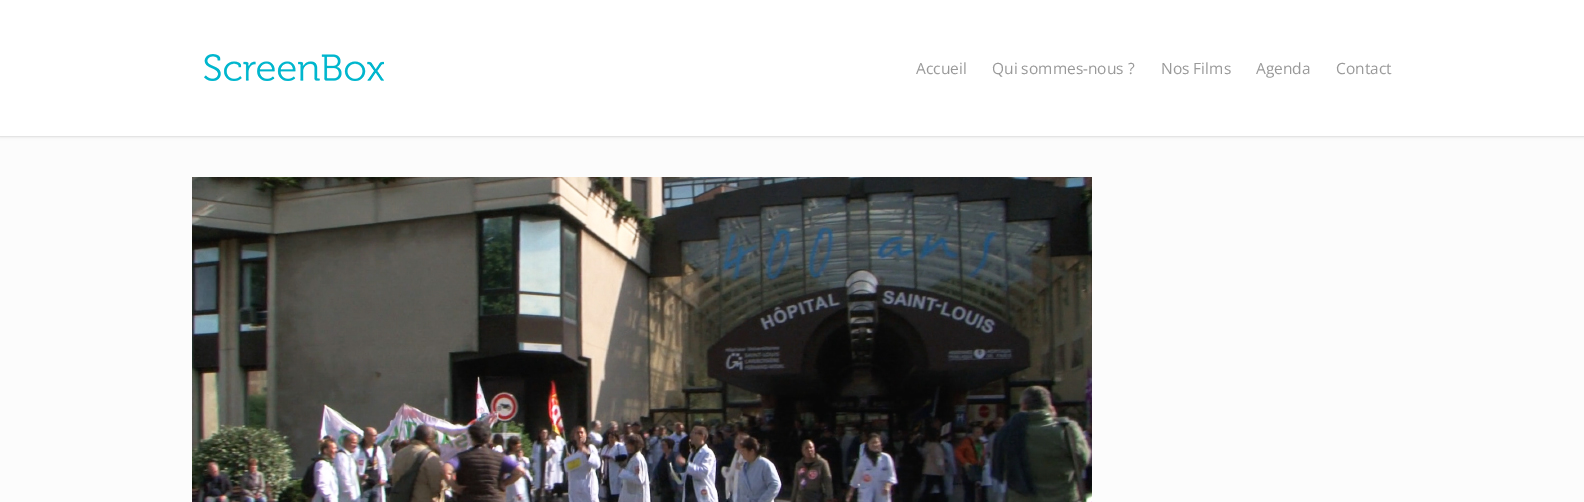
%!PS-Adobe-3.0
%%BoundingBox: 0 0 1584 502
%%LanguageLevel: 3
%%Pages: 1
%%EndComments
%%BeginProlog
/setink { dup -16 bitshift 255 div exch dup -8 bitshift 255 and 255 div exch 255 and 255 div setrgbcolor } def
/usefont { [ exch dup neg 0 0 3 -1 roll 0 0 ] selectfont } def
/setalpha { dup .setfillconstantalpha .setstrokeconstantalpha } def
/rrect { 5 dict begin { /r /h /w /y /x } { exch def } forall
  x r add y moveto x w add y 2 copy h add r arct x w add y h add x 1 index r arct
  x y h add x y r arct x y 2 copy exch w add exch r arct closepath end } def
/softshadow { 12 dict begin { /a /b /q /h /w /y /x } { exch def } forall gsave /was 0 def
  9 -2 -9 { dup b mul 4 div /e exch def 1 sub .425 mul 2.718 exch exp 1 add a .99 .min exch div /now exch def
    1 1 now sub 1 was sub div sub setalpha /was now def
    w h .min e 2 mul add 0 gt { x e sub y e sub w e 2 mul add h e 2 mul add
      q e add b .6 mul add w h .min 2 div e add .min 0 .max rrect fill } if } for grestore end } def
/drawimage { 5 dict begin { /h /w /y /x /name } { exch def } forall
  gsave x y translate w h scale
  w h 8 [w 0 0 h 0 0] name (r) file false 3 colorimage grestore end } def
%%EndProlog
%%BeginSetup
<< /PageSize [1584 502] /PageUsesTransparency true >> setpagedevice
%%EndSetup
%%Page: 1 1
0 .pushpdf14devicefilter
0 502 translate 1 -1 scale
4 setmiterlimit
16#FCFCFC setink
0 0 1584 502 rectfill
16#000000 setink
0 0 1584 137 0 1.5 0.1 softshadow
16#FFFFFF setink
0 0 1584 136 rectfill
16#E4E4E4 setink
0 136 1584 1 rectfill
(img1.raw) 204 54 180 27 drawimage
/OpenSans-Regular 15.5 usefont
16#999999 setink
[
    [(Accueil) 916 74]
    [(Qui sommes-nous ?) 992 74]
    [(Nos Films) 1161 74]
    [(Agenda) 1256 74]
    [(Contact) 1336 74]
] { aload pop moveto show } forall
(img2.raw) 192 177 900 325 drawimage
.poppdf14devicefilter showpage
%%EOF
